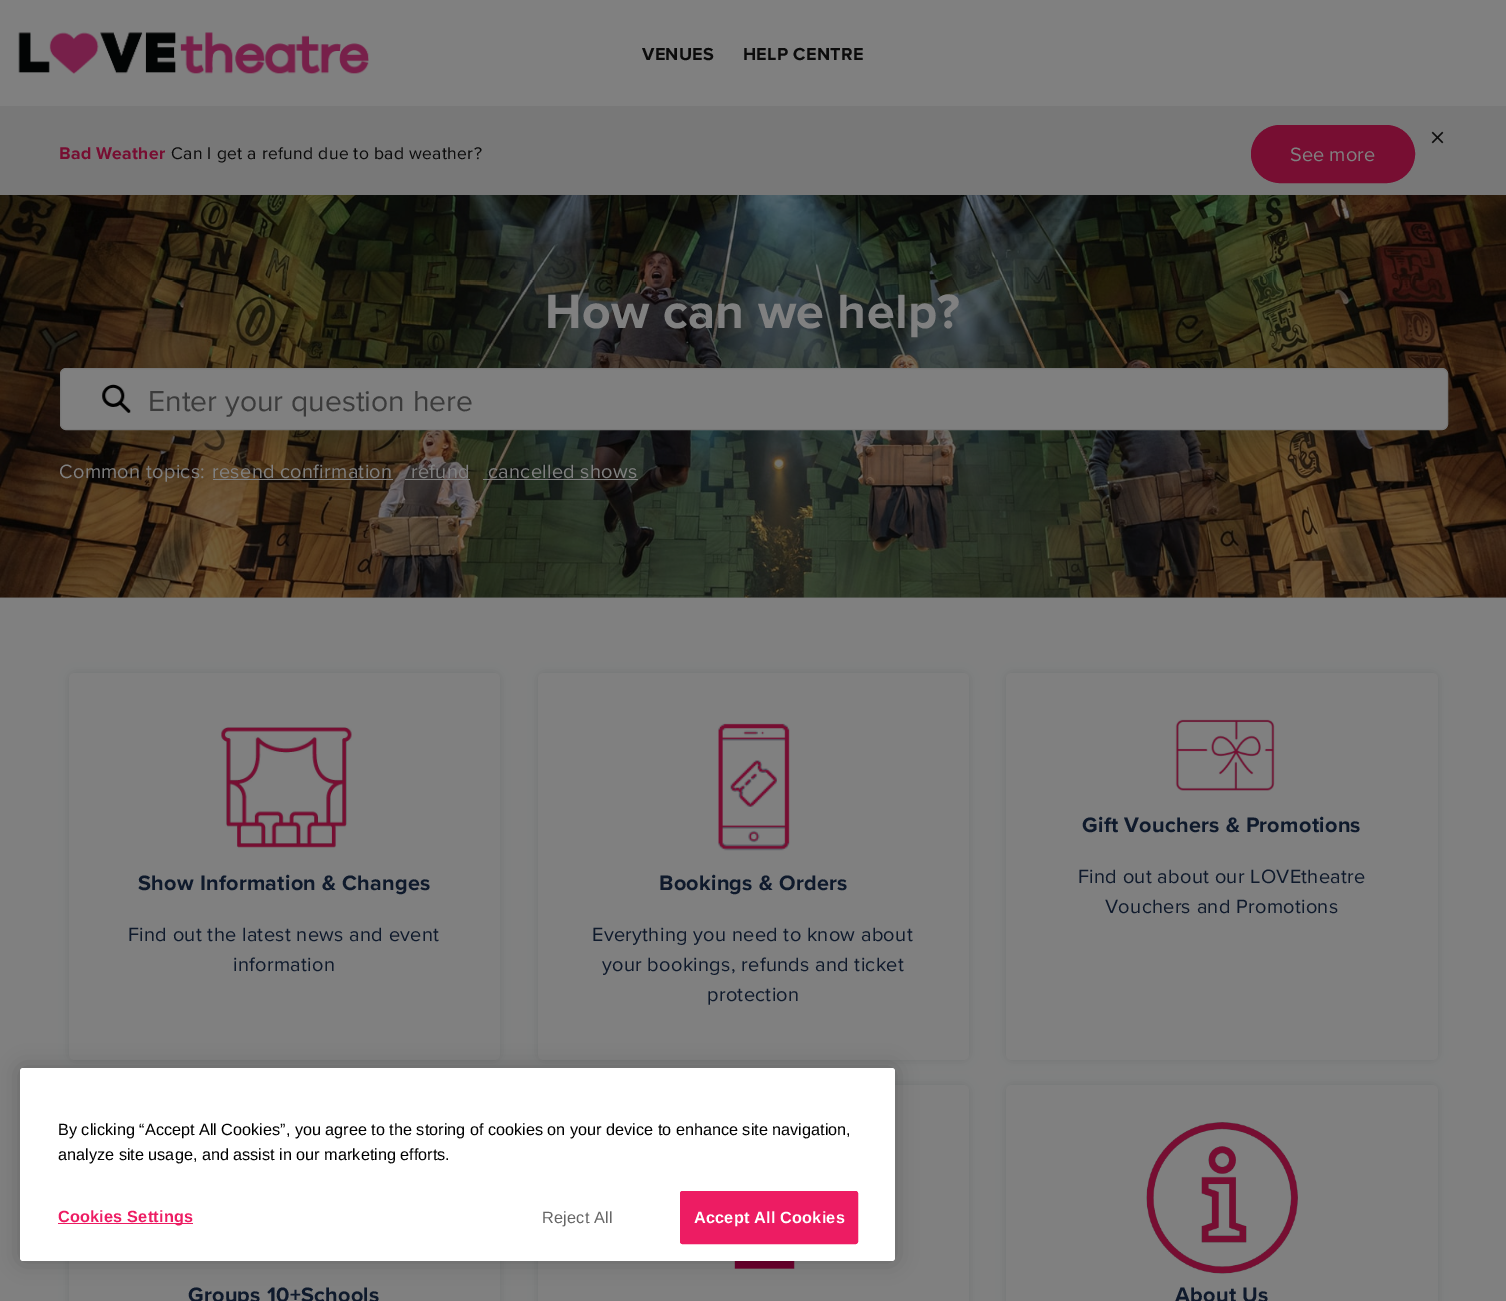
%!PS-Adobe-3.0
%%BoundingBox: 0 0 1506 1301
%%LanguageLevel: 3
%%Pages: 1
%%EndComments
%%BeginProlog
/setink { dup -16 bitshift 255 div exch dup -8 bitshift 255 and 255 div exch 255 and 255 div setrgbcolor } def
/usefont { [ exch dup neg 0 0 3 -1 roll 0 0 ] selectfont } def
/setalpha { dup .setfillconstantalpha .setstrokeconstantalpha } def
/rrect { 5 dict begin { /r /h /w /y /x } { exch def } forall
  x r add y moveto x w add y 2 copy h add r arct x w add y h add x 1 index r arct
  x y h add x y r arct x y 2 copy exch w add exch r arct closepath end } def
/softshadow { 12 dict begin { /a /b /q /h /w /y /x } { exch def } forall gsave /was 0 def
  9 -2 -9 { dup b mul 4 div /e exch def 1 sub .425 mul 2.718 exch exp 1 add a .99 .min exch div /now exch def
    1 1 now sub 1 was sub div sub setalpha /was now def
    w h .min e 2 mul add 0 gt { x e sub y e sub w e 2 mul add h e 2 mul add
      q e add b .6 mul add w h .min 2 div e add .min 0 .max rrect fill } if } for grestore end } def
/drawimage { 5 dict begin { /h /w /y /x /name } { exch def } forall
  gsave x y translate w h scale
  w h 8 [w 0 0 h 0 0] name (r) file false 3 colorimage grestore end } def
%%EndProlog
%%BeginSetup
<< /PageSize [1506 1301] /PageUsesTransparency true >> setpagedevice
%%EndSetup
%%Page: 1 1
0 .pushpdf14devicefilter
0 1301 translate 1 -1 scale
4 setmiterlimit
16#808080 setink
0 0 1506 1301 rectfill
16#737373 setink
0 597 1506 1 rectfill
(img1.raw) 18 32 351 42 drawimage
/ProximaNova-Bold 18 usefont
16#0C0C0C setink
642 60 moveto 0.3 0 (VENUES) ashow
743 60 moveto 0.3 0 (HELP CENTRE) ashow
16#787878 setink
0 106 1506 89 rectfill
/ProximaNova-Bold 17.5 usefont
16#770E32 setink
59 159 moveto 0.3 0 (Bad Weather) ashow
/ProximaNova-Regular 17.5 usefont
16#0C0C0C setink
171 159 moveto 0.3 0 (Can I get a refund due to bad weather?) ashow
(img2.raw) 1431 131 13 13 drawimage
16#770E32 setink
1251.5 125.5 163 57 28.5 rrect gsave fill grestore
stroke
/ProximaNova-Regular 20 usefont
16#808080 setink
1290 161 moveto (See more) show
(img3.raw) 0 195 1506 403 drawimage
/ProximaNova-Bold 50 usefont
545 328 moveto 0.3 0 (How can we help?) ashow
16#001F1E setink
60 378 1388 62 6 10 0.12 softshadow
16#808080 setink
60.5 368.5 1387 61 5.5 rrect gsave fill grestore
16#787878 setink
stroke
(img4.raw) 101 384 30 29 drawimage
/ProximaNova-Regular 30 usefont
16#3B3B3B setink
148 411 moveto (Enter your question here) show
/ProximaNova-Regular 20 usefont
16#808080 setink
59 478 moveto 0.3 0 (Common topics:) ashow
212 478 moveto 0.3 0 (resend confirmation) ashow
213 479 180 1 rectfill
411 478 moveto 0.3 0 (refund) ashow
405 479 65 1 rectfill
488 478 moveto 0.3 0 (cancelled shows) ashow
483 479 155 1 rectfill
16#001F1E setink
69 673 431 387 6 5 0.12 softshadow
16#808080 setink
69 673 431 387 6 rrect fill
(img5.raw) 221 727 131 121 drawimage
/ProximaNova-Bold 21.6 usefont
16#0F1A2C setink
138 890 moveto 0.3 0 (Show Information & Changes) ashow
/ProximaNova-Regular 20 usefont
128 941 moveto 0.3 0 (Find out the latest news and event) ashow
233 971 moveto 0.3 0 (information) ashow
16#001F1E setink
538 673 431 387 6 5 0.12 softshadow
16#808080 setink
538 673 431 387 6 rrect fill
(img6.raw) 718 723 72 128 drawimage
/ProximaNova-Bold 21.6 usefont
16#0F1A2C setink
659 890 moveto 0.3 0 (Bookings & Orders) ashow
/ProximaNova-Regular 20 usefont
592 941 moveto 0.3 0 (Everything you need to know about) ashow
602 971 moveto 0.3 0 (your bookings, refunds and ticket) ashow
707 1001 moveto 0.3 0 (protection) ashow
16#001F1E setink
1006 673 432 387 6 5 0.12 softshadow
16#808080 setink
1006 673 432 387 6 rrect fill
(img7.raw) 1175 719 100 72 drawimage
/ProximaNova-Bold 21.6 usefont
16#0F1A2C setink
1082 832 moveto 0.3 0 (Gift Vouchers & Promotions) ashow
/ProximaNova-Regular 20 usefont
1078 883 moveto 0.3 0 (Find out about our LOVEtheatre) ashow
1105 913 moveto 0.3 0 (Vouchers and Promotions) ashow
16#001F1E setink
69 1085 431 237 6 5 0.12 softshadow
16#808080 setink
69 1261 431 40 rectfill
/ProximaNova-Bold 21.6 usefont
16#0F1A2C setink
188 1302 moveto 0.3 0 (Groups 10+Schools) ashow
16#001F1E setink
538 1085 431 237 6 5 0.12 softshadow
16#808080 setink
538 1085 431 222 6 rrect fill
(img8.raw) 695 1261 117 8 drawimage
16#001F1E setink
1006 1085 432 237 6 5 0.12 softshadow
16#808080 setink
1006 1085 432 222 6 rrect fill
(img9.raw) 1146 1122 152 152 drawimage
16#0F1A2C setink
1175 1302 moveto 0.3 0 (About Us) ashow
16#000000 setink
20 1068 875 193 3 11 0.2 softshadow
16#FFFFFF setink
20 1068 875 193 3 rrect fill
/LiberationSans-Regular 16.25 usefont
16#000000 setink
58 1135 moveto (By clicking “Accept All Cookies”, you agree to the storing of cookies on your device to enhance site navigation,) show
58 1160 moveto (analyze site usage, and assist in our marketing efforts.) show
16#ED1C63 setink
58 1223 135 1 rectfill
/LiberationSans-Bold 16.25 usefont
58 1222 moveto 0.2 0 (Cookies Settings) ashow
/LiberationSans-Regular 16.25 usefont
16#666666 setink
542 1223 moveto 0.2 0 (Reject All) ashow
16#ED1C63 setink
680.5 1191.5 177 52 2 rrect gsave fill grestore
stroke
/LiberationSans-Bold 16.25 usefont
16#FFFFFF setink
694 1223 moveto 0.2 0 (Accept All Cookies) ashow
.poppdf14devicefilter showpage
%%EOF
